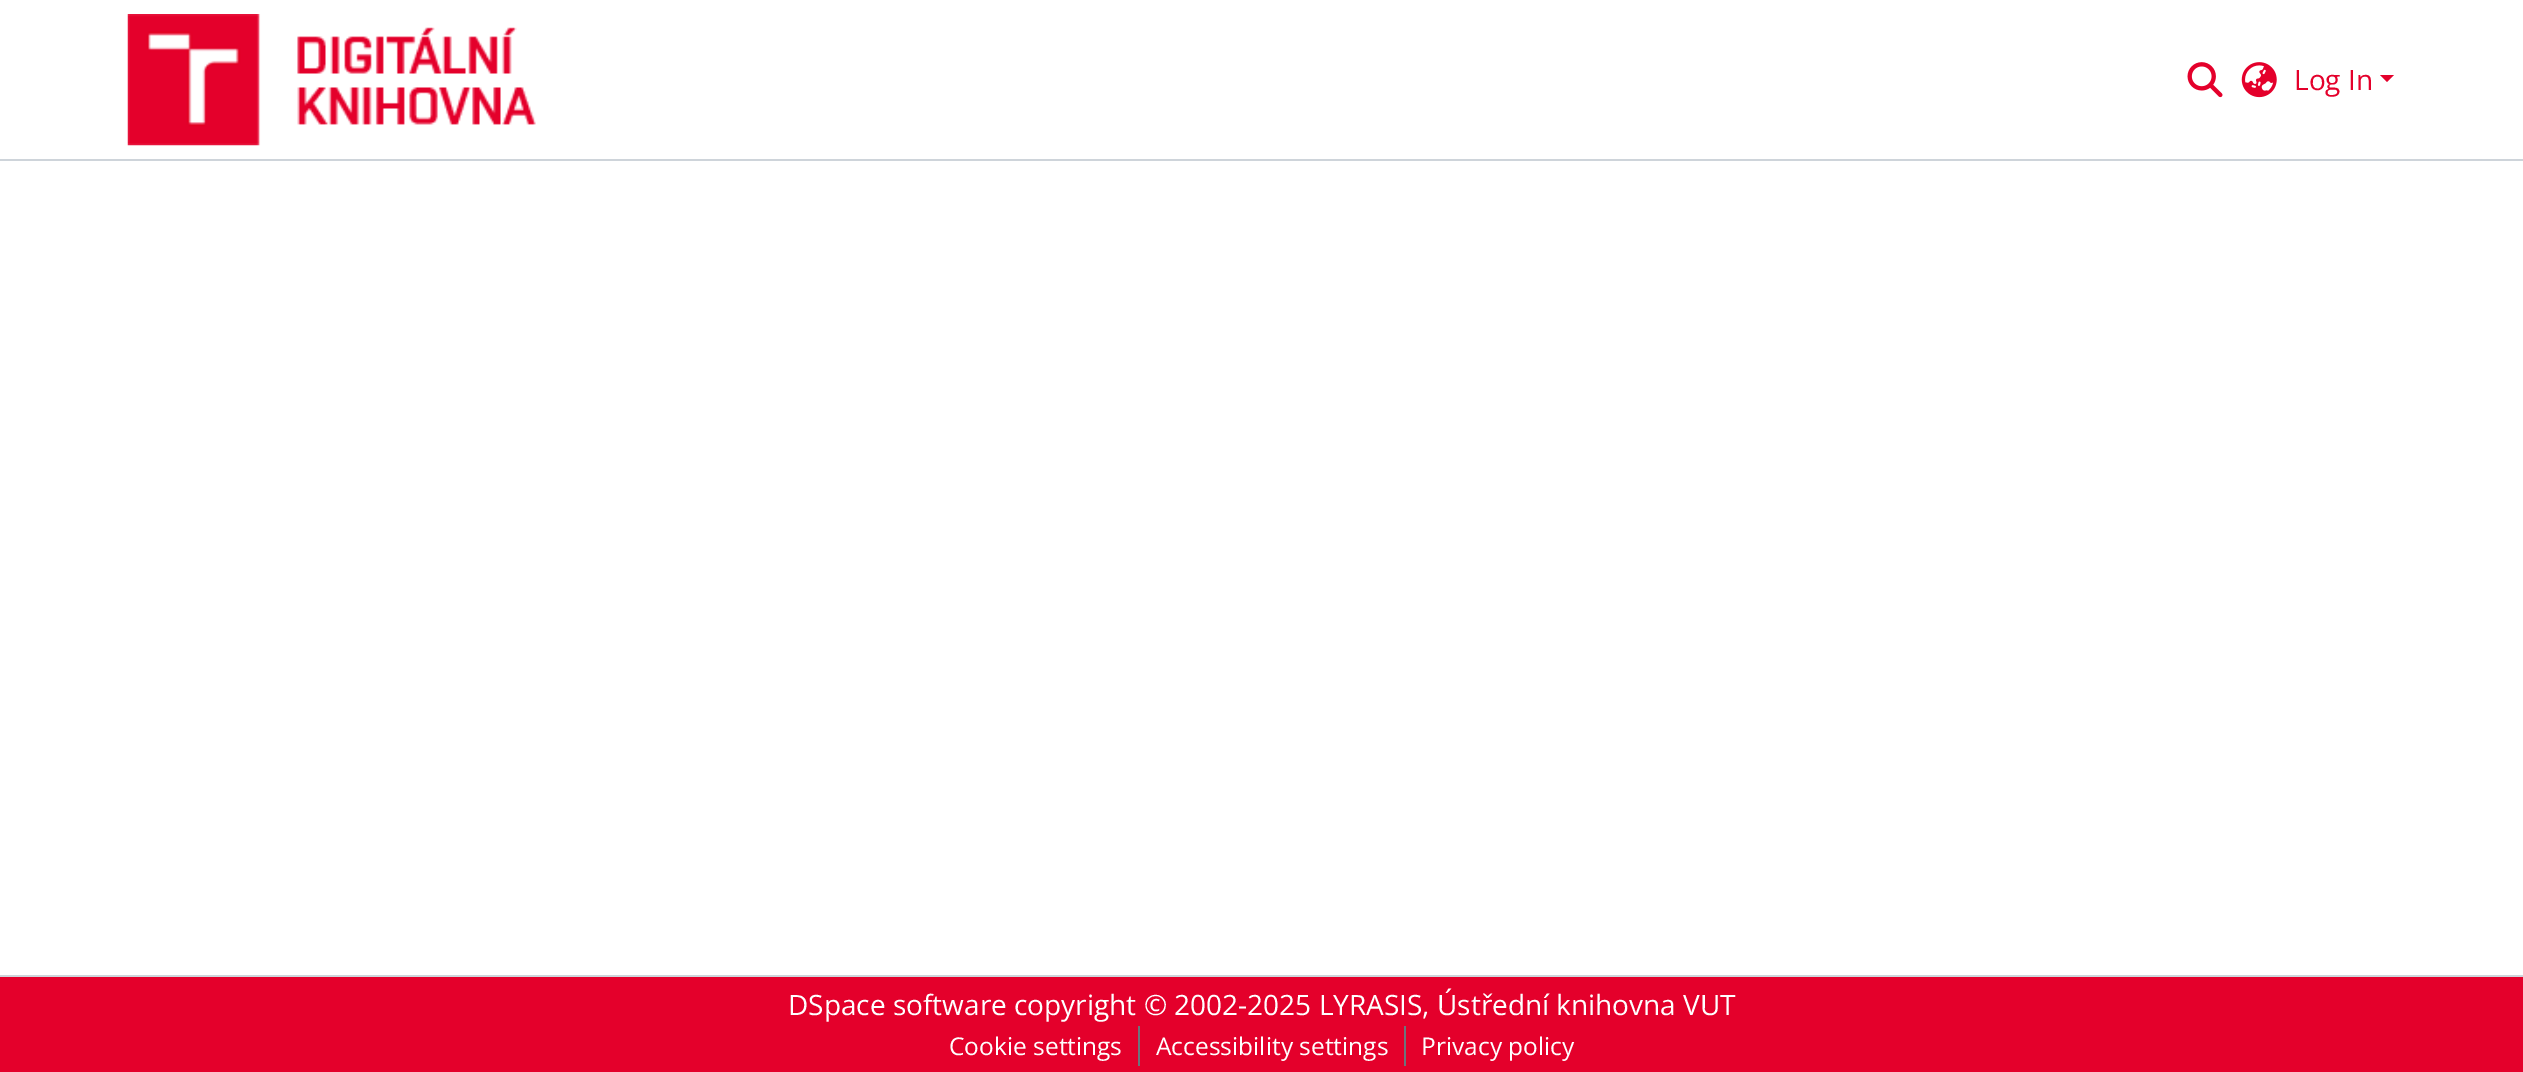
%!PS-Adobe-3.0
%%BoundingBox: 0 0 2523 1072
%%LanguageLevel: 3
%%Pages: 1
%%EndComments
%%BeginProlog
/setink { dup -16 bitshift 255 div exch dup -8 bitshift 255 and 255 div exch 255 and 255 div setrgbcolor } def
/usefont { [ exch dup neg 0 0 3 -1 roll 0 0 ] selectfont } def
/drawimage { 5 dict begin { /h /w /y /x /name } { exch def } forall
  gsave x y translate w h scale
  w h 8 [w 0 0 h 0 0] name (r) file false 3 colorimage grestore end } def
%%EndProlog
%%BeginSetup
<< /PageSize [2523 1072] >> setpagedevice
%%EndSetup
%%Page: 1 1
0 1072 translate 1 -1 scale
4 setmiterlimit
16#FFFFFF setink
0 0 2523 1072 rectfill
16#CED4DA setink
0 159 2523 2 rectfill
(img1.raw) 127 14 409 132 drawimage
(img2.raw) 2187 62 36 36 drawimage
(img3.raw) 2241 62 36 36 drawimage
/OpenSans-Regular 28 usefont
16#E4002B setink
2294 90 moveto (Log In) show
2380 75 moveto 2394 75 lineto 2387 82 lineto closepath fill
0 977 2523 95 rectfill
16#CED4DA setink
0 975 2523 2 rectfill
16#FFFFFF setink
788 1015 moveto (DSpace software copyright © 2002-2025 LYRASIS, Ústřední knihovna VUT) show
/OpenSans-Regular 24.5 usefont
949 1055 moveto (Cookie settings) show
16#6C757D setink
1138 1026 2 40 rectfill
16#FFFFFF setink
1156 1055 moveto (Accessibility settings) show
16#6C757D setink
1404 1026 2 40 rectfill
16#FFFFFF setink
1421 1055 moveto (Privacy policy) show
showpage
%%EOF
